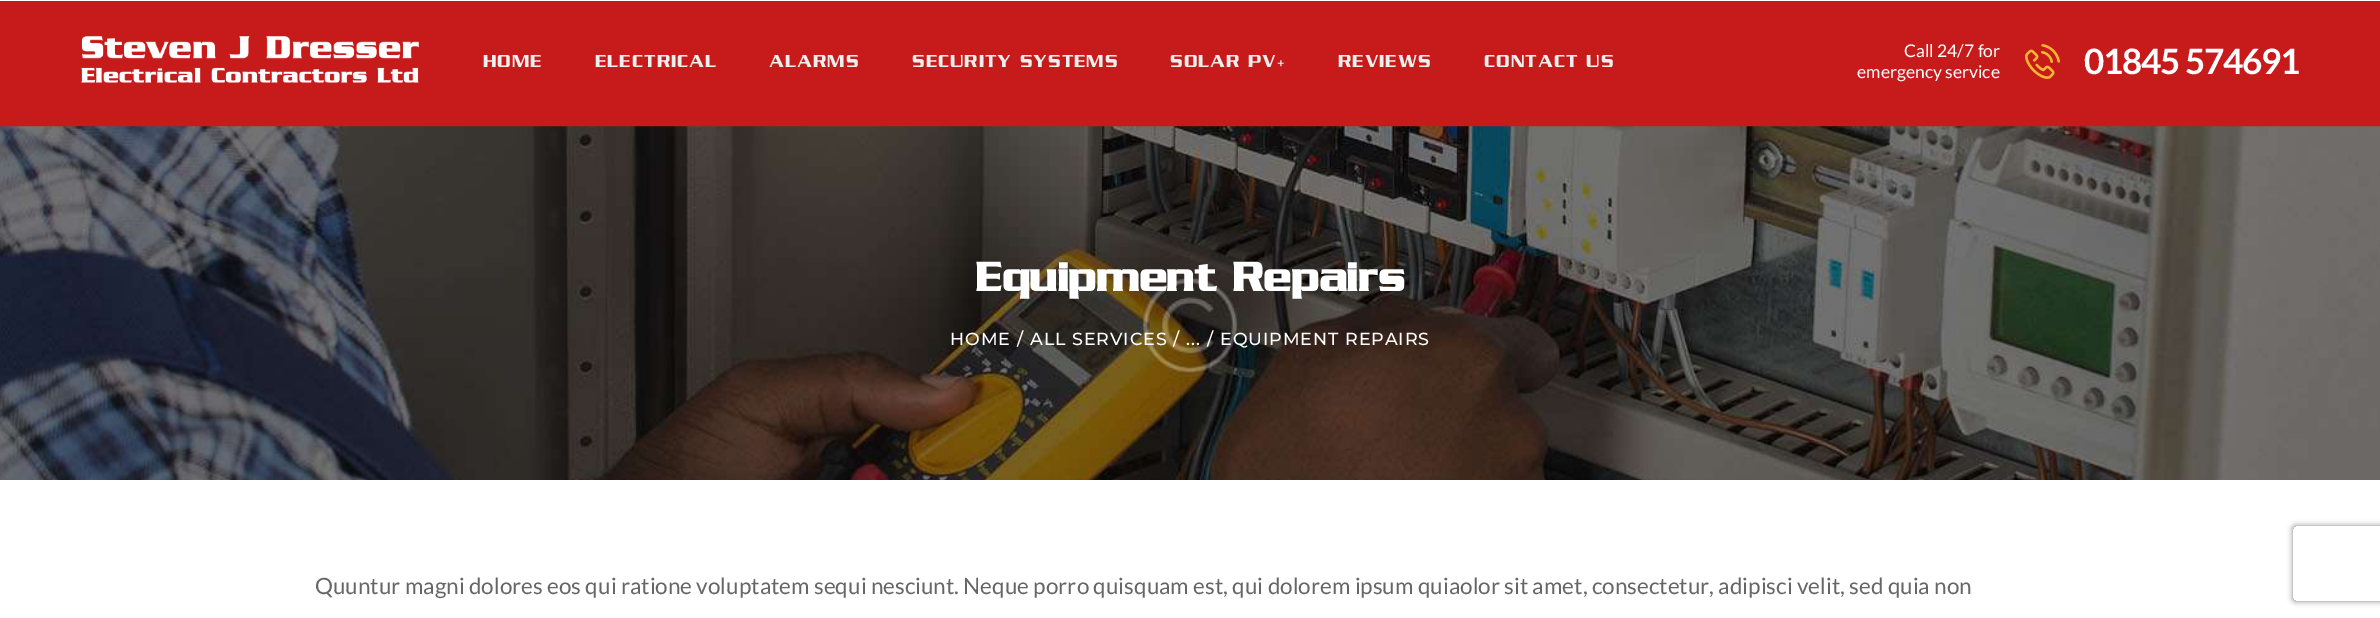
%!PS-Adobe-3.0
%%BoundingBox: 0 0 2380 618
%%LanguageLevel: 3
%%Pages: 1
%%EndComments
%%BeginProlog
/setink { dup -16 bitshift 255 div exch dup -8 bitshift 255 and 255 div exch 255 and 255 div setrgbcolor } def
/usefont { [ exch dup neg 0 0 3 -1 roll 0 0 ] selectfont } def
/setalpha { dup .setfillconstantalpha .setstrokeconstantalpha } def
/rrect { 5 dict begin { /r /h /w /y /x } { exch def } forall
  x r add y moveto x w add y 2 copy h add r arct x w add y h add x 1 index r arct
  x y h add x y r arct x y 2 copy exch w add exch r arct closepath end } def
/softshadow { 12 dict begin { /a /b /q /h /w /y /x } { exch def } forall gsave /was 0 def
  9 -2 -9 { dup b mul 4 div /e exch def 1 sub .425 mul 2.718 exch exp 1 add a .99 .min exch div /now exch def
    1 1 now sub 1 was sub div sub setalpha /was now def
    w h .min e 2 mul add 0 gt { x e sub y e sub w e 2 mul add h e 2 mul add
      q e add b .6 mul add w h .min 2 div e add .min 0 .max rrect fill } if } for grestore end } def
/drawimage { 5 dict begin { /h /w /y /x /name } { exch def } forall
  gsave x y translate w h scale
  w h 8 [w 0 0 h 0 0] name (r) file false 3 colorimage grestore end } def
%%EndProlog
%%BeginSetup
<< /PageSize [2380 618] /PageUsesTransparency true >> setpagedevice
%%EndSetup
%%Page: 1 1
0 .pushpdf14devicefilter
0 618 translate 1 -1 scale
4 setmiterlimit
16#FFFFFF setink
0 0 2380 618 rectfill
16#C71B1B setink
0 1 2380 125 rectfill
(img1.raw) 81 36 338 47 drawimage
/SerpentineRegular-Regular 18.75 usefont
16#EFEFEF setink
483 67 moveto 0.9 0 (HOME) ashow
595 67 moveto 0.9 0 (ELECTRICAL) ashow
769 67 moveto 0.9 0 (ALARMS) ashow
912 67 moveto 0.9 0 (SECURITY SYSTEMS) ashow
1170 67 moveto 0.9 0 (SOLAR PV+) ashow
1338 67 moveto 0.9 0 (REVIEWS) ashow
1484 67 moveto 0.9 0 (CONTACT US) ashow
/Lato-Regular 17.5 usefont
16#FFFFFF setink
1904 57 moveto (Call 24/7 for) show
1857 78 moveto (emergency service) show
(img2.raw) 2025 44 35 35 drawimage
/Lato-Bold 35 usefont
2084 74 moveto -1.25 0 (01845 574691) ashow
(img3.raw) 0 126 2380 354 drawimage
/SerpentineRegular-Bold 43.75 usefont
975 291 moveto (Equipment Repairs) show
/Montserrat-Medium 17.5 usefont
950 345 moveto 0.9 0 (HOME) ashow
1017 345 moveto 0.9 0 (/) ashow
1030 345 moveto 0.9 0 (ALL SERVICES) ashow
1173 345 moveto 0.9 0 (/) ashow
1186 345 moveto 0.9 0 (...) ashow
1207 345 moveto 0.9 0 (/) ashow
1220 345 moveto 0.9 0 (EQUIPMENT REPAIRS) ashow
/Lato-Regular 22.5 usefont
16#666666 setink
315 594 moveto (Quuntur magni dolores eos qui ratione voluptatem sequi nesciunt. Neque porro quisquam est, qui dolorem ipsum quiaolor sit amet, consectetur, adipisci velit, sed quia non) show
gsave
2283 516 moveto 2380 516 lineto 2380 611 lineto 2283 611 lineto closepath 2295.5 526 moveto 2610.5 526 lineto 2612 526 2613 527 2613 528.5 curveto 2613 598.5 lineto 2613 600 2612 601 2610.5 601 curveto 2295.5 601 lineto 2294 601 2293 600 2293 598.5 curveto 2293 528.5 lineto 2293 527 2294 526 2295.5 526 curveto closepath eoclip newpath
16#808080 setink
2293 526 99 75 2.5 3 1 softshadow
grestore
.poppdf14devicefilter showpage
%%EOF
